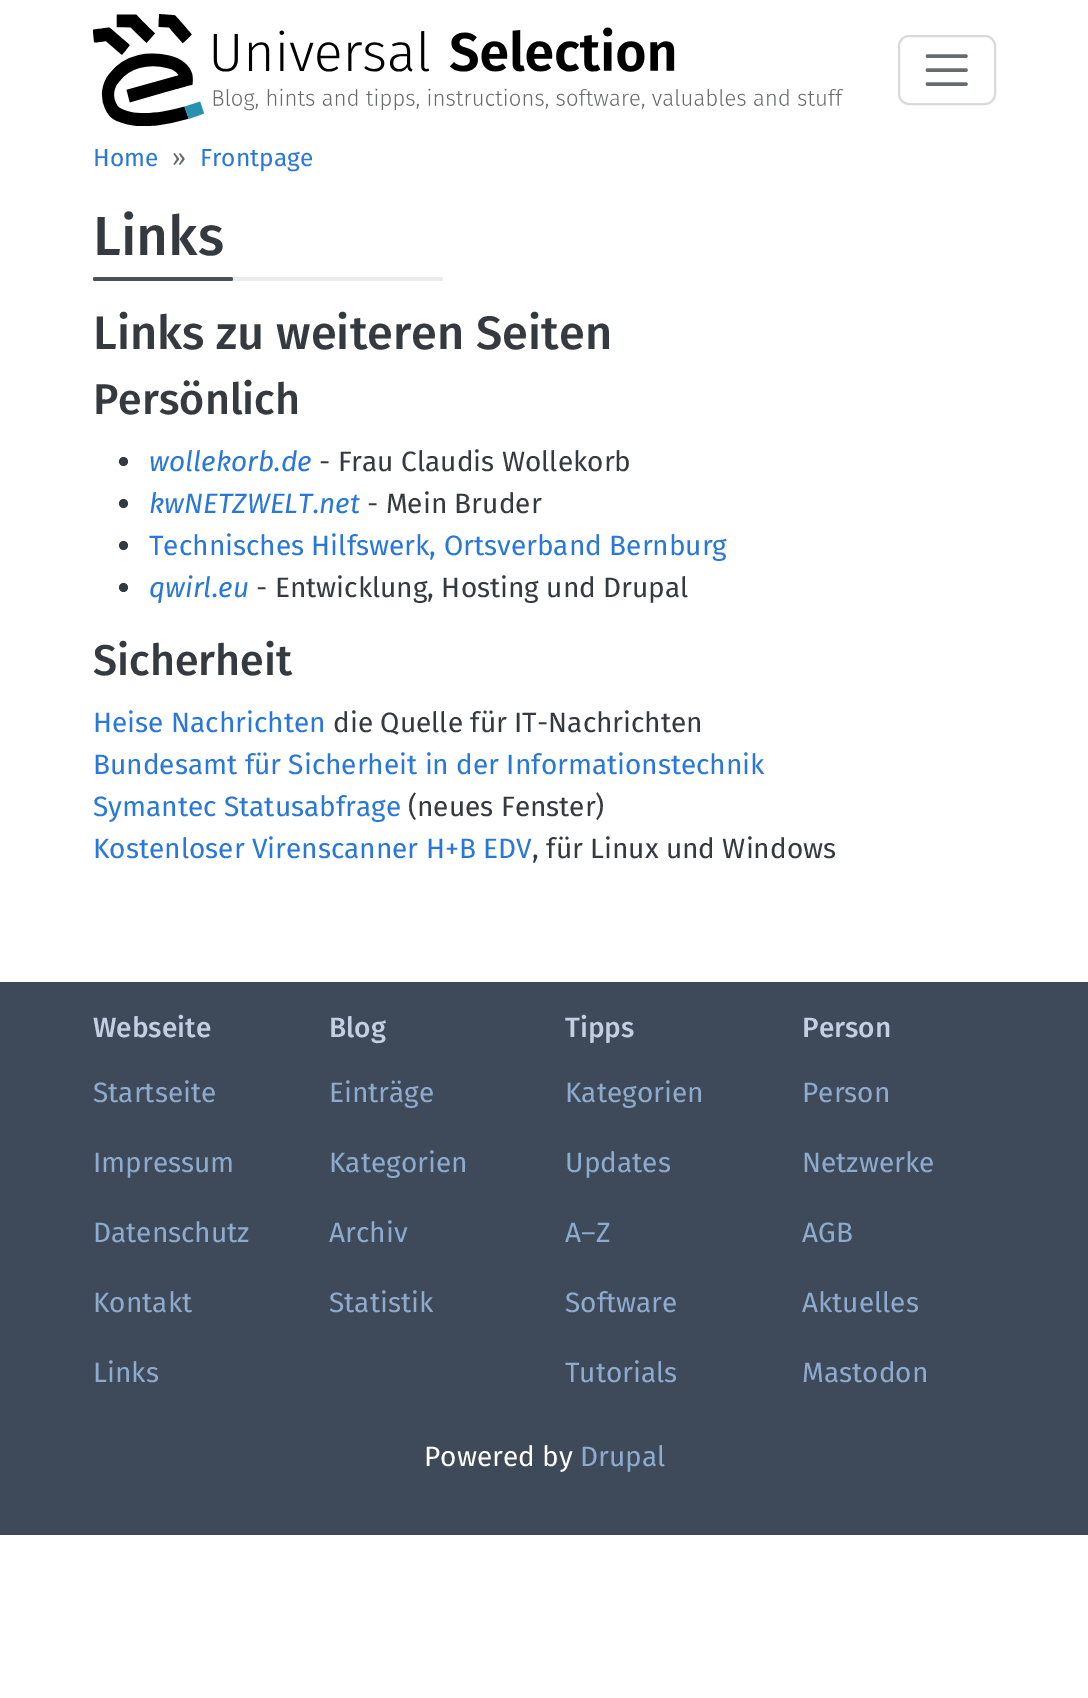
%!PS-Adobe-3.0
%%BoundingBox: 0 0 1088 1698
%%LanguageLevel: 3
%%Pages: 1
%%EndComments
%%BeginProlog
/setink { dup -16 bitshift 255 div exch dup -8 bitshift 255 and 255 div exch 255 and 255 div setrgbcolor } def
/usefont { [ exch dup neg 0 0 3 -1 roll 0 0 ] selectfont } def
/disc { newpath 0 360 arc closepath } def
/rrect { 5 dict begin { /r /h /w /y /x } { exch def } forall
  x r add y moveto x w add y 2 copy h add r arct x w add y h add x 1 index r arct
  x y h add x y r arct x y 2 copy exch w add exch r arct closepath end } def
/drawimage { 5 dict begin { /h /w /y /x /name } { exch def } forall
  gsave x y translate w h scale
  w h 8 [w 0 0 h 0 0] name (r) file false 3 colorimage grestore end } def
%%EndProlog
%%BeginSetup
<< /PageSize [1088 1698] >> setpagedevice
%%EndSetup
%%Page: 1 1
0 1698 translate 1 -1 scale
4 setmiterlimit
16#FFFFFF setink
0 0 1088 1698 rectfill
(img1.raw) 93 14 751 112 drawimage
16#D9D9D9 setink
2 setlinewidth
899 36 96 68 10 rrect stroke
16#676B70 setink
3.5 setlinewidth
1 setlinecap
927.5 56 moveto 966 56 lineto 927.5 70 moveto 966 70 lineto 927.5 84 moveto 966 84 lineto stroke
/FiraSans-Regular 24.5 usefont
16#2978D9 setink
93 166 moveto (Home) show
16#676B70 setink
172 166 moveto (») show
16#2978D9 setink
200 166 moveto (Frontpage) show
/FiraSans-Medium 55 usefont
16#343A40 setink
93 255 moveto (Links) show
16#E9ECEF setink
93 277 350 4 2 rrect fill
16#495057 setink
93 277 140 4 2 rrect fill
/FiraSans-Medium 46.9 usefont
16#343A40 setink
93 349 moveto (Links zu weiteren Seiten) show
/FiraSans-Medium 43 usefont
93 414 moveto (Persönlich) show
123.5 461.5 4.5 disc fill
/FiraSans-Italic 28 usefont
16#2978D9 setink
149 471 moveto (wollekorb.de) show
/FiraSans-Regular 28 usefont
16#343A40 setink
319 471 moveto (- Frau Claudis Wollekorb) show
123.5 503.5 4.5 disc fill
/FiraSans-Italic 28 usefont
16#2978D9 setink
149 513 moveto (kwNETZWELT.net) show
/FiraSans-Regular 28 usefont
16#343A40 setink
367 513 moveto (- Mein Bruder) show
123.5 545.5 4.5 disc fill
16#2978D9 setink
149 555 moveto (Technisches Hilfswerk, Ortsverband Bernburg) show
16#343A40 setink
123.5 587.5 4.5 disc fill
/FiraSans-Italic 28 usefont
16#2978D9 setink
149 597 moveto (qwirl.eu) show
/FiraSans-Regular 28 usefont
16#343A40 setink
256 597 moveto (- Entwicklung, Hosting und Drupal) show
/FiraSans-Medium 43 usefont
93 675 moveto (Sicherheit) show
/FiraSans-Regular 28 usefont
16#2978D9 setink
93 732 moveto (Heise Nachrichten) show
16#343A40 setink
333 732 moveto (die Quelle für IT-Nachrichten) show
16#2978D9 setink
93 774 moveto (Bundesamt für Sicherheit in der Informationstechnik) show
93 816 moveto (Symantec Statusabfrage) show
16#343A40 setink
408 816 moveto (\(neues Fenster\)) show
16#2978D9 setink
93 858 moveto (Kostenloser Virenscanner H+B EDV) show
16#343A40 setink
532 858 moveto (, für Linux und Windows) show
16#3E4A59 setink
0 982 1088 553 rectfill
/FiraSans-Medium 28 usefont
16#C2D0E2 setink
93 1037 moveto (Webseite) show
/FiraSans-Regular 28 usefont
16#8EABCE setink
[
    [(Startseite) 93 1102]
    [(Impressum) 93 1172]
    [(Datenschutz) 93 1242]
    [(Kontakt) 93 1312]
    [(Links) 93 1382]
] { aload pop moveto show } forall
/FiraSans-Medium 28 usefont
16#C2D0E2 setink
329 1037 moveto (Blog) show
/FiraSans-Regular 28 usefont
16#8EABCE setink
[
    [(Einträge) 329 1102]
    [(Kategorien) 329 1172]
    [(Archiv) 329 1242]
    [(Statistik) 329 1312]
] { aload pop moveto show } forall
/FiraSans-Medium 28 usefont
16#C2D0E2 setink
565 1037 moveto (Tipps) show
/FiraSans-Regular 28 usefont
16#8EABCE setink
[
    [(Kategorien) 565 1102]
    [(Updates) 565 1172]
    [(A–Z) 565 1242]
    [(Software) 565 1312]
    [(Tutorials) 565 1382]
] { aload pop moveto show } forall
/FiraSans-Medium 28 usefont
16#C2D0E2 setink
802 1037 moveto (Person) show
/FiraSans-Regular 28 usefont
16#8EABCE setink
[
    [(Person) 802 1102]
    [(Netzwerke) 802 1172]
    [(AGB) 802 1242]
    [(Aktuelles) 802 1312]
    [(Mastodon) 802 1382]
] { aload pop moveto show } forall
16#FFFFFF setink
424 1466 moveto (Powered by) show
16#8EABCE setink
580 1466 moveto (Drupal) show
showpage
%%EOF
